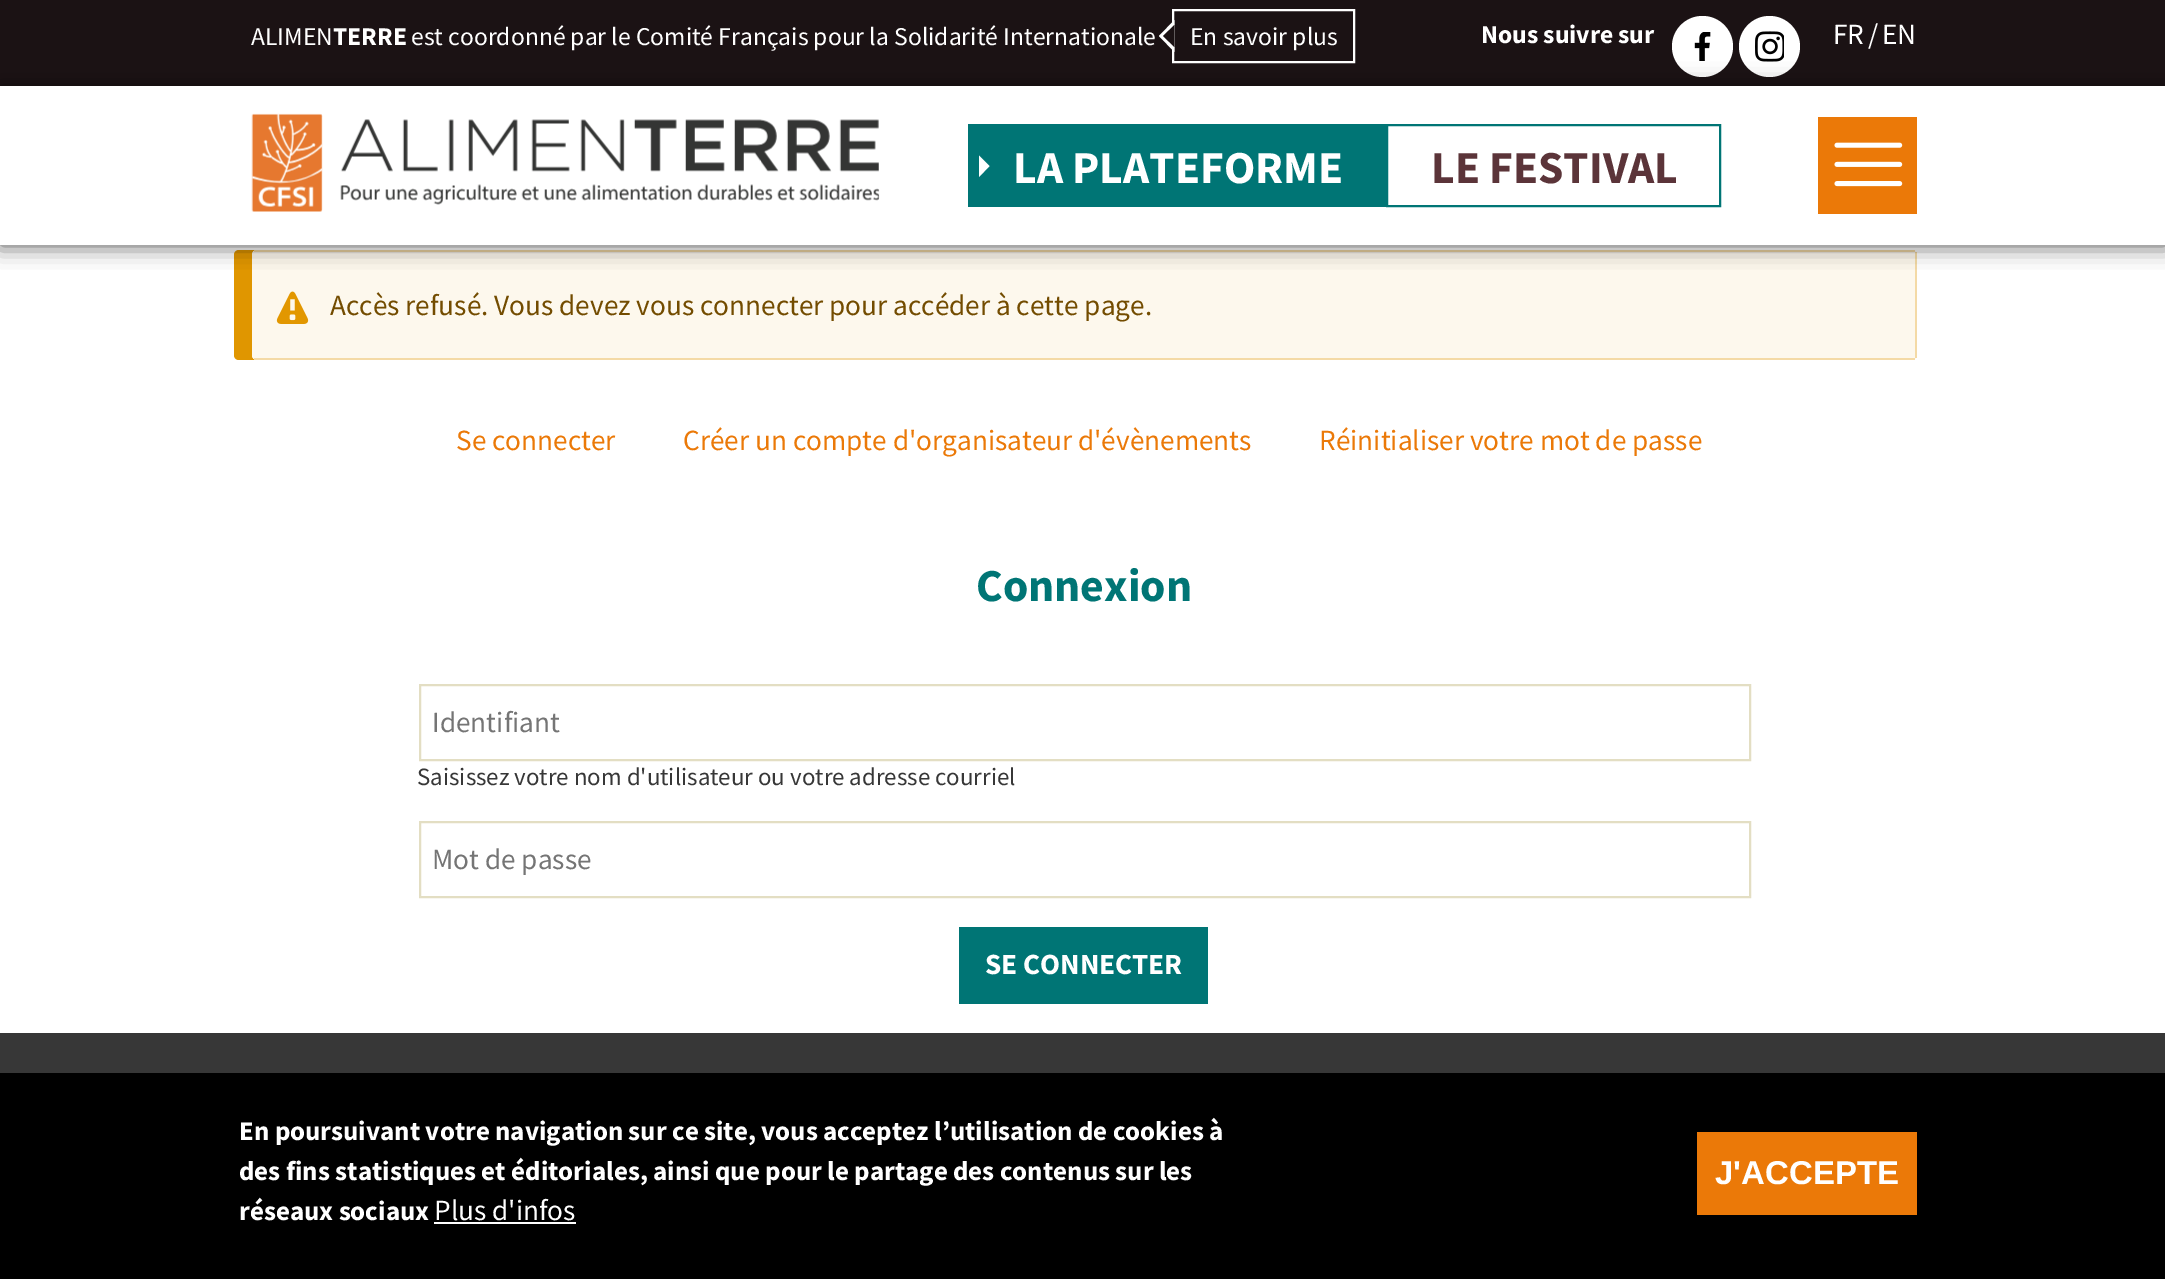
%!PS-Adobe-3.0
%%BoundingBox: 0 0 2165 1279
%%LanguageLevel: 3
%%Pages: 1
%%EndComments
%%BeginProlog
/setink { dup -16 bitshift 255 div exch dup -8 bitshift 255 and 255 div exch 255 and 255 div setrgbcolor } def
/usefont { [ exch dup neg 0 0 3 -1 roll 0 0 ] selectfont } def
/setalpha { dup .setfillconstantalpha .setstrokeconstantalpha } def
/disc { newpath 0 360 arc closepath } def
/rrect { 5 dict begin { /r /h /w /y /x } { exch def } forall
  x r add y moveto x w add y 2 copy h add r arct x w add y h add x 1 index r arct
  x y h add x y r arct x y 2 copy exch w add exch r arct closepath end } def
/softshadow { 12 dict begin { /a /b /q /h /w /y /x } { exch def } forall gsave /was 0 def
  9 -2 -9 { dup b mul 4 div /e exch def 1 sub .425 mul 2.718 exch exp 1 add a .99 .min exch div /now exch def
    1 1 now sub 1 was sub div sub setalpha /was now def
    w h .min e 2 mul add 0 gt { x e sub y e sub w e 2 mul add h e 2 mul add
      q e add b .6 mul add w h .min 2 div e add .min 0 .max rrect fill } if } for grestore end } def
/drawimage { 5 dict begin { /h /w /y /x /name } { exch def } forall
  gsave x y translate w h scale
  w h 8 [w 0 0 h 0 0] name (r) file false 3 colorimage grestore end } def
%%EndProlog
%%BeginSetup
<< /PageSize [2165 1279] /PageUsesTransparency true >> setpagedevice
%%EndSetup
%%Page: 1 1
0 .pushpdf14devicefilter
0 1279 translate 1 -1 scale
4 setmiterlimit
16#FFFFFF setink
0 0 2165 1279 rectfill
16#E09600 setink
239 250 moveto 236 250 234 252 234 255 curveto 234 355 lineto 234 358 236 360 239 360 curveto 256 360 lineto 254 360 252 358 252 356 curveto 252 254 lineto 252 252 253 251 255 250 curveto closepath fill
16#FDF8ED setink
252 250 1665 110 5 rrect fill
16#F4DAA6 setink
254 250 1661 2 rectfill
1915 252 2 106 rectfill
16#000000 setink
0 0 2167 245 0 11 0.39 softshadow
16#FFFFFF setink
0 86 2165 159 rectfill
16#1B1214 setink
0 0 2165 86 rectfill
/SourceSansPro-Regular 25.6 usefont
16#FFFFFF setink
251 45 moveto (ALIMEN) show
/SourceSansPro-Bold 25.6 usefont
333 45 moveto (TERRE) show
/SourceSansPro-Regular 25.6 usefont
411 45 moveto (est coordonné par le Comité Français pour la Solidarité Internationale) show
2 setlinewidth
1173 10 181 52 rectstroke
1174.5 20 moveto 1174.5 52 lineto 1159 36 lineto closepath fill
16#1B1214 setink
1174.5 25 moveto 1174.5 47 lineto 1163 36 lineto closepath fill
16#FFFFFF setink
1190 45 moveto (En savoir plus) show
/SourceSansPro-Bold 25.6 usefont
1481 43 moveto (Nous suivre sur) show
1702.5 46.5 30.5 disc fill
(img1.raw) 1694 32 17 29 drawimage
1769.5 46.5 30.5 disc fill
(img2.raw) 1755 31 29 31 drawimage
/SourceSansPro-Regular 29.25 usefont
[
    [(FR) 1833 44]
    [(/) 1868 44]
    [(EN) 1882 44]
] { aload pop moveto show } forall
gsave
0 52 moveto 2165 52 lineto 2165 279 lineto 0 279 lineto closepath 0 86 moveto 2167 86 lineto 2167 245 lineto 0 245 lineto closepath eoclip newpath
16#000000 setink
0 86 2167 159 0 11 0.39 softshadow
grestore
(img3.raw) 251 113 629 99 drawimage
16#007575 setink
968 124 418 83 rectfill
16#FFFFFF setink
979 177 moveto 979 155.5 lineto 989.5 166 lineto closepath eofill
/SourceSansPro-Bold 45.75 usefont
1013 183 moveto (LA PLATEFORME) show
16#007575 setink
1387 125 333 81 rectstroke
16#5B3439 setink
1431 183 moveto (LE FESTIVAL) show
16#EB7908 setink
1818 117 99 97 rectfill
(img4.raw) 1834 142 69 45 drawimage
(img5.raw) 276 291 33 33 drawimage
16#F4DAA6 setink
254 358 1661 2 rectfill
/SourceSansPro-Regular 29.25 usefont
16#734C00 setink
330 315 moveto (Accès refusé. Vous devez vous connecter pour accéder à cette page.) show
16#EB7908 setink
[
    [(Se connecter) 456 450]
    [(Créer un compte d'organisateur d'évènements) 683 450]
    [(Réinitialiser votre mot de passe) 1319 450]
] { aload pop moveto show } forall
/SourceSansPro-Bold 45.75 usefont
16#007575 setink
976 601 moveto (Connexion) show
16#E3DEC3 setink
420 685 1330 75 rectstroke
/SourceSansPro-Regular 29.25 usefont
16#757575 setink
432 732 moveto (Identifiant) show
/SourceSansPro-Regular 24.9 usefont
16#373737 setink
417 785 moveto (Saisissez votre nom d'utilisateur ou votre adresse courriel) show
16#E3DEC3 setink
420 822 1330 75 rectstroke
/SourceSansPro-Regular 29.25 usefont
16#757575 setink
432 869 moveto (Mot de passe) show
16#007575 setink
959 927 249 77 rectfill
/SourceSansPro-Bold 29.25 usefont
16#FFFFFF setink
985 974 moveto (SE CONNECTER) show
16#373737 setink
0 1033 2165 40 rectfill
16#000000 setink
0 1073 2165 206 rectfill
/SourceSansPro-Bold 27 usefont
16#FFFFFF setink
[
    [(En poursuivant votre navigation sur ce site, vous acceptez l’utilisation de cookies à) 239 1140]
    [(des fins statistiques et éditoriales, ainsi que pour le partage des contenus sur les) 239 1180]
    [(réseaux sociaux) 239 1220]
] { aload pop moveto show } forall
/SourceSansPro-Regular 29.25 usefont
434 1220 moveto (Plus d'infos) show
434 1222 142 2 rectfill
16#EB7908 setink
1697 1132 220 83 rectfill
/LiberationSans-Bold 33 usefont
16#FFFFFF setink
1715 1184 moveto (J'ACCEPTE) show
.poppdf14devicefilter showpage
%%EOF
